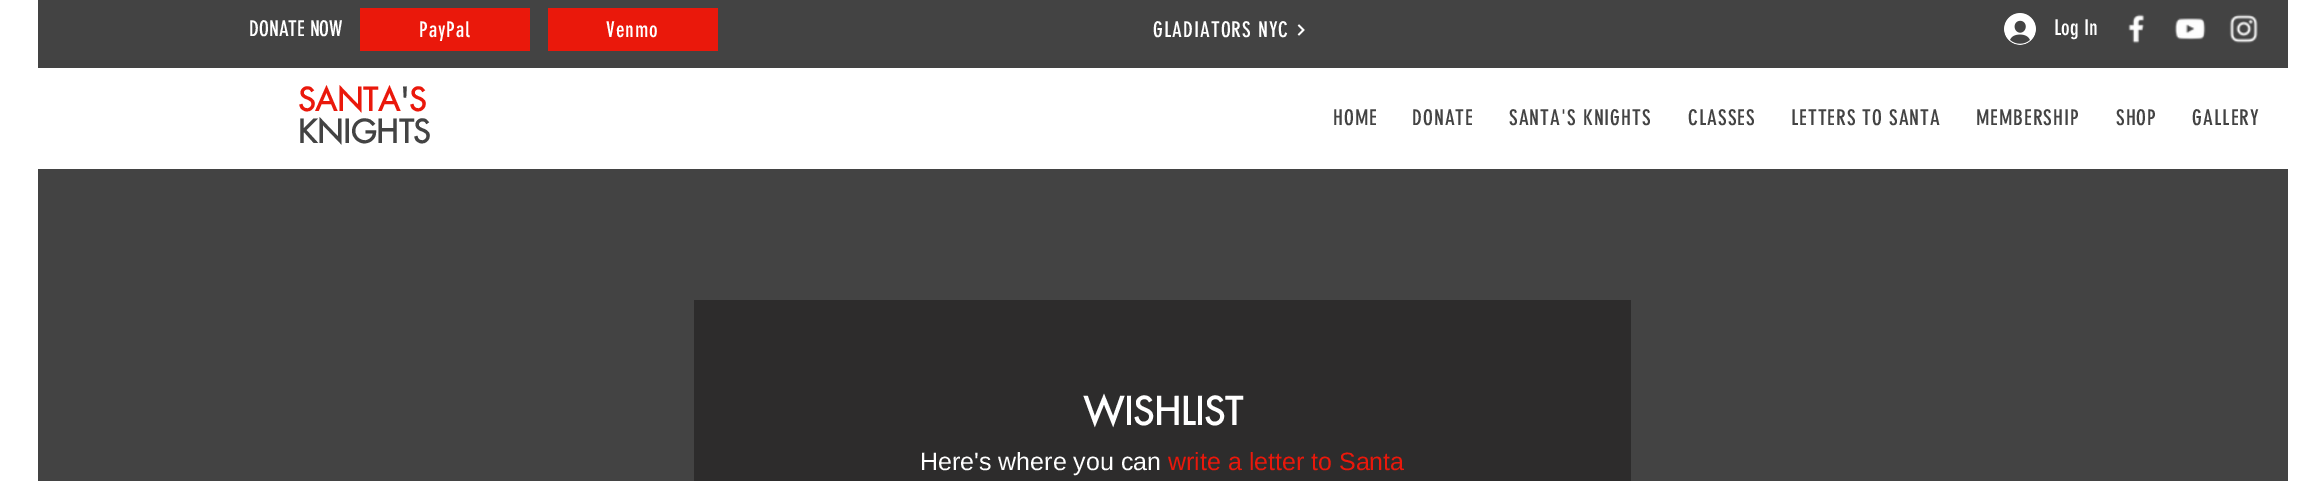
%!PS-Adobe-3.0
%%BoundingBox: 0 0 2324 481
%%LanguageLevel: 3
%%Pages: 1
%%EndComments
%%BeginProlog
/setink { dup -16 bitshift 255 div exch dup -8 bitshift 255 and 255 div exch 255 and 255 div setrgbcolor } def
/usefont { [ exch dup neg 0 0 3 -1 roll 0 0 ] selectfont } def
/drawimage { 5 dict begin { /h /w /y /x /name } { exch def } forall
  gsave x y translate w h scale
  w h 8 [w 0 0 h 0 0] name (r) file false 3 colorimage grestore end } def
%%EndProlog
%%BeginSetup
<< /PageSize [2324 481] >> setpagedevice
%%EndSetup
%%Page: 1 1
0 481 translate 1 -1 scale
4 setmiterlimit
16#FFFFFF setink
0 0 2324 481 rectfill
16#434343 setink
38 0 2250 68 rectfill
/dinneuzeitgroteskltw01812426-Regular 21.25 usefont
16#FFFFFF setink
249 36 moveto (DONATE NOW) show
16#EA180B setink
360 8 170 43 rectfill
16#FFFFFF setink
419 37 moveto 1 0 (PayPal) ashow
16#EA180B setink
548 8 170 43 rectfill
16#FFFFFF setink
606 37 moveto 1 0 (Venmo) ashow
1153 37 moveto 1 0 (GLADIATORS NYC) ashow
(img1.raw) 1297 24 8 12 drawimage
(img2.raw) 2004 13 32 32 drawimage
2054 35 moveto (Log In) show
(img3.raw) 2128 14 17 30 drawimage
(img4.raw) 2174 18 32 22 drawimage
(img5.raw) 2229 14 29 30 drawimage
/futura-Bold 31.25 usefont
16#EA180B setink
298 111 moveto (SANTA) show
16#434343 setink
400 111 moveto (') show
16#EA180B setink
409 111 moveto (S) show
16#434343 setink
298 143 moveto (KNIGHTS) show
/dinneuzeitgroteskltw01812426-Regular 21.25 usefont
1333 125 moveto 1 0 (HOME) ashow
1412 125 moveto 1 0 (DONATE) ashow
1509 125 moveto 1 0 (SANTA'S KNIGHTS) ashow
1688 125 moveto 1 0 (CLASSES) ashow
1791 125 moveto 1 0 (LETTERS TO SANTA) ashow
1976 125 moveto 1 0 (MEMBERSHIP) ashow
2116 125 moveto 1 0 (SHOP) ashow
2192 125 moveto 1 0 (GALLERY) ashow
38 169 2250 312 rectfill
16#2D2C2C setink
694 300 937 181 rectfill
/futura-Bold 37.5 usefont
16#FFFFFF setink
1083 425 moveto (WISHLIST) show
/LiberationSans-Regular 25 usefont
920 470 moveto (Here's where you can) show
16#EA180B setink
1168 470 moveto (write a letter to Santa) show
showpage
%%EOF
